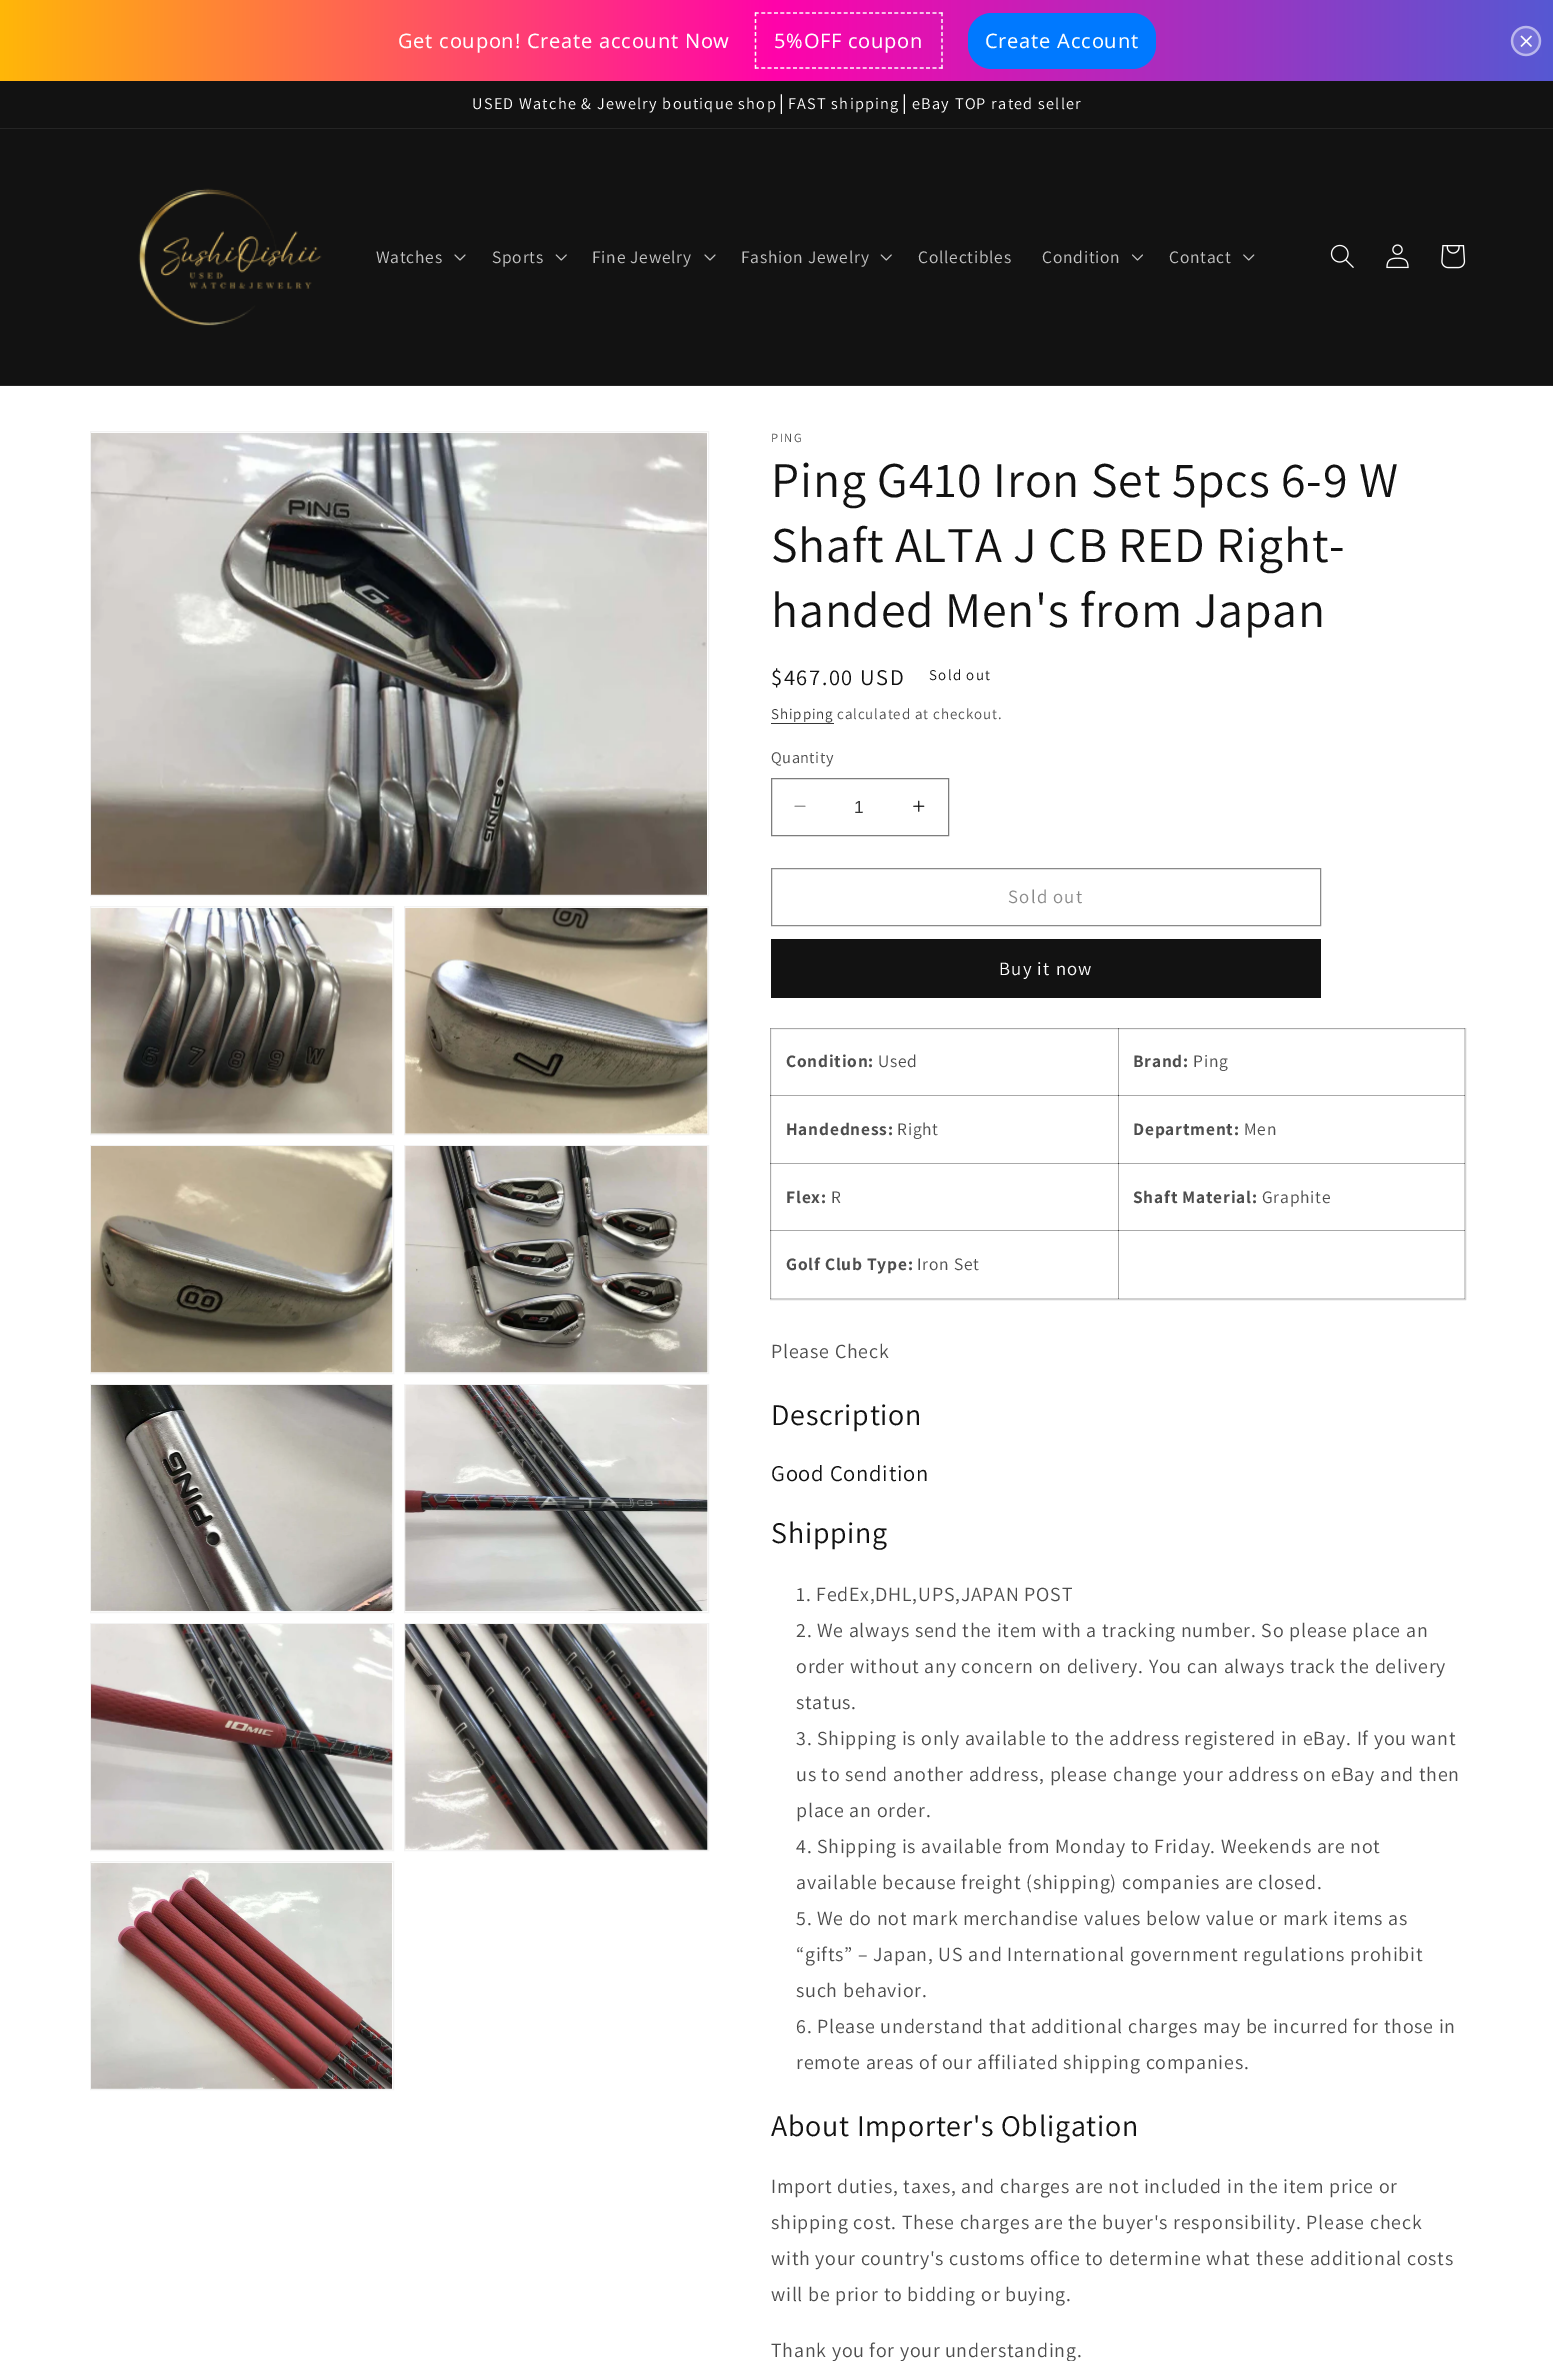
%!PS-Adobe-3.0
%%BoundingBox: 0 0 1553 2361
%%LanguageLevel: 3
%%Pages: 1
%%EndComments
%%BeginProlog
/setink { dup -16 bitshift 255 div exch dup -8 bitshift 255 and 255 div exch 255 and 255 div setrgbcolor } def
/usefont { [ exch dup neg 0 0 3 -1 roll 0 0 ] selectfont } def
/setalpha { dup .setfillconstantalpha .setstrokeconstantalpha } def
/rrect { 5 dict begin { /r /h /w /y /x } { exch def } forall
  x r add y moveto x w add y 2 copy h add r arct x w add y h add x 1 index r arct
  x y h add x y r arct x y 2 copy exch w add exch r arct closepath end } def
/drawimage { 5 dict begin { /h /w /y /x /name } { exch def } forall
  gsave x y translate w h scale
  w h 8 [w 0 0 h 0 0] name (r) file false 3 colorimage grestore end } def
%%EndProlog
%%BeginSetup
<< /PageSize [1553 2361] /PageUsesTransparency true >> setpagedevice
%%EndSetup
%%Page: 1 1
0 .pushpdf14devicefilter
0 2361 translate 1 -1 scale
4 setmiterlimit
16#FFFFFF setink
0 0 1553 2361 rectfill
[
    [1464 1095 1 136 16#D0D0D0]
    [1118 1230 1 69 16#D0D0D0]
    [1118 1298 347 1 16#D0D0D0]
    [1118 1298 1 1 16#AAAAAA]
    [1464 1230 1 69 16#D0D0D0]
    [1464 1298 1 1 16#AAAAAA]
] { aload pop setink rectfill } forall
gsave 0 0 moveto 1553 0 lineto 1553 81 lineto 0 81 lineto closepath clip newpath
<< /ShadingType 2 /ColorSpace /DeviceRGB /Coords [0 41 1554 41] /Extend [true true] /Function << /FunctionType 3 /Domain [0 1] /Functions [<< /FunctionType 2 /Domain [0 1] /C0 [1 0.718 0.031] /C1 [1 0.012 0.667] /N 1 >> << /FunctionType 2 /Domain [0 1] /C0 [1 0.012 0.667] /C1 [0.337 0.345 0.827] /N 1 >>] /Bounds [0.5] /Encode [0 1 0 1] >> >> shfill grestore
/NotoSans-Regular 20 usefont
16#FFFFFF setink
398 48 moveto 0.75 0 (Get coupon! Create account Now) ashow
1.2 setlinewidth
[3.75 2.59] 0 setdash
755 13 moveto 942.5 13 lineto stroke
[3.75 2.81] 0 setdash
942 12.5 moveto 942 69 lineto stroke
[3.75 2.59] 0 setdash
755 68 moveto 942.5 68 lineto stroke
[3.75 2.81] 0 setdash
755.5 12.5 moveto 755.5 69 lineto stroke
774 48 moveto 0.75 0 (5%OFF coupon) ashow
16#0079FF setink
968 13 188 56 24 rrect fill
16#FFFFFF setink
985 48 moveto 0.75 0 (Create Account) ashow
(img1.raw) 1510 25 32 32 drawimage
16#121212 setink
0 81 1553 47 rectfill
16#252525 setink
0 128 1553 1 rectfill
/Assistant-Regular 16.25 usefont
16#FFFFFF setink
472 109 moveto 1.25 0 (USED Watche & Jewelry boutique shop) ashow
/LiberationSans-Regular 16.25 usefont
777 109 moveto 1.25 0 (│) ashow
/Assistant-Regular 16.25 usefont
788 109 moveto 1.25 0 (FAST shipping) ashow
/LiberationSans-Regular 16.25 usefont
900 109 moveto 1.25 0 (│) ashow
/Assistant-Regular 16.25 usefont
912 109 moveto 1.25 0 (eBay TOP rated seller) ashow
16#121212 setink
0 129 1553 256 rectfill
16#252525 setink
0 385 1553 1 rectfill
(img2.raw) 138 188 184 138 drawimage
/Assistant-Regular 17.5 usefont
16#C4C4C4 setink
376 263 moveto 0.75 0 (Watches) ashow
(img3.raw) 454 254 12 7 drawimage
492 263 moveto 0.75 0 (Sports) ashow
(img4.raw) 555 254 12 7 drawimage
592 263 moveto 0.75 0 (Fine Jewelry) ashow
(img3.raw) 704 254 12 7 drawimage
741 263 moveto 0.75 0 (Fashion Jewelry) ashow
(img4.raw) 880 254 12 7 drawimage
918 263 moveto 0.75 0 (Collectibles) ashow
1042 263 moveto 0.75 0 (Condition) ashow
(img5.raw) 1132 254 11 7 drawimage
1169 263 moveto 0.75 0 (Contact) ashow
(img6.raw) 1243 254 12 7 drawimage
(img7.raw) 1330 244 24 24 drawimage
(img8.raw) 1386 244 23 25 drawimage
(img9.raw) 1441 245 25 24 drawimage
16#F3F3F3 setink
1 setlinewidth
[] 0 setdash
90.5 431.5 618 464 rectstroke
(img10.raw) 91 433 616 462 drawimage
90.5 906.5 303 228 rectstroke
(img11.raw) 91 908 302 227 drawimage
404.5 906.5 304 228 rectstroke
(img12.raw) 404 908 304 227 drawimage
90.5 1145.5 303 228 rectstroke
(img13.raw) 91 1146 302 227 drawimage
404.5 1145.5 304 228 rectstroke
(img14.raw) 404 1146 304 227 drawimage
90.5 1384.5 303 228 rectstroke
(img15.raw) 91 1385 302 227 drawimage
404.5 1384.5 304 228 rectstroke
(img16.raw) 404 1385 304 227 drawimage
90.5 1623.5 303 227 rectstroke
(img17.raw) 91 1624 302 227 drawimage
404.5 1623.5 304 227 rectstroke
(img18.raw) 404 1624 304 227 drawimage
90.5 1861.5 303 228 rectstroke
(img19.raw) 91 1863 301 226 drawimage
/Assistant-Regular 12.5 usefont
16#4D4D4D setink
771 442 moveto 1.6 0 (PING) ashow
/Assistant-Regular 50 usefont
16#121212 setink
771 497 moveto 0.75 0 (Ping G410 Iron Set 5pcs 6-9 W) ashow
771 562 moveto 0.75 0 (Shaft ALTA J CB RED Right-) ashow
771 627 moveto 0.75 0 (handed Men's from Japan) ashow
/Assistant-Regular 22.5 usefont
771 685 moveto 1.6 0 ($467.00 USD) ashow
/Assistant-Regular 15 usefont
929 680 moveto 1.25 0 (Sold out) ashow
16#363636 setink
771 719 moveto 0.9 0 (Shipping) ashow
771 723 63 1 rectfill
16#4D4D4D setink
837 719 moveto 0.9 0 (calculated at checkout.) ashow
/Assistant-Regular 16.25 usefont
771 763 moveto 0.5 0 (Quantity) ashow
(img20.raw) 794 805 12 2 drawimage
(img21.raw) 913 800 12 12 drawimage
16#7D7D7D setink
771.5 778.5 177 57 rectstroke
/LiberationSans-Regular 17.5 usefont
16#363636 setink
854 813 moveto (1) show
16#898989 setink
771.5 868.5 549 57 rectstroke
/Assistant-Regular 18.75 usefont
1008 903 moveto 1.25 0 (Sold out) ashow
16#121212 setink
771 939 550 59 rectfill
16#FFFFFF setink
999 975 moveto 1.25 0 (Buy it now) ashow
16#D0D0D0 setink
770.5 1028.5 695 271 rectstroke
[
    [1118 1028 347 1 16#AAAAAA]
    [1118 1095 347 1 16#D0D0D0]
    [1464 1095 1 1 16#AAAAAA]
] { aload pop setink rectfill } forall
0.2 setalpha
[
    [1464 1028 1 68 16#121212]
] { aload pop setink rectfill } forall
1 setalpha
[
    [1118 1163 347 1 16#D0D0D0]
    [1118 1230 347 1 16#D0D0D0]
    [1118 1230 1 1 16#AAAAAA]
    [1464 1230 1 1 16#8C8C8C]
] { aload pop setink rectfill } forall
0.2 setalpha
[
    [770 1230 349 1 16#121212]
    [1118 1230 1 69 16#121212]
    [1118 1230 347 1 16#121212]
    [1118 1163 1 68 16#121212]
    [770 1163 349 1 16#121212]
    [1118 1163 1 68 16#121212]
] { aload pop setink rectfill } forall
1 setalpha
[
    [1464 1163 1 1 16#8C8C8C]
] { aload pop setink rectfill } forall
0.2 setalpha
[
    [1118 1163 347 1 16#121212]
    [1118 1095 1 69 16#121212]
    [770 1095 349 1 16#121212]
    [1118 1095 1 69 16#121212]
    [1118 1095 347 1 16#121212]
    [1118 1028 1 68 16#121212]
    [770 1028 349 1 16#121212]
    [1118 1028 1 68 16#121212]
    [770 1298 349 1 16#121212]
    [770 1230 1 69 16#121212]
    [770 1230 349 1 16#121212]
    [770 1163 1 68 16#121212]
    [770 1163 349 1 16#121212]
    [770 1095 1 69 16#121212]
    [770 1095 349 1 16#121212]
    [770 1028 1 68 16#121212]
] { aload pop setink rectfill } forall
/Assistant-Bold 17.5 usefont
1 setalpha
16#4D4D4D setink
786 1067 moveto 0.75 0 (Condition:) ashow
/Assistant-Regular 17.5 usefont
878 1067 moveto 0.75 0 (Used) ashow
/Assistant-Bold 17.5 usefont
1133 1067 moveto 0.75 0 (Brand:) ashow
/Assistant-Regular 17.5 usefont
1193 1067 moveto 0.75 0 (Ping) ashow
/Assistant-Bold 17.5 usefont
786 1135 moveto 0.75 0 (Handedness:) ashow
/Assistant-Regular 17.5 usefont
897 1135 moveto 0.75 0 (Right) ashow
/Assistant-Bold 17.5 usefont
1133 1135 moveto 0.75 0 (Department:) ashow
/Assistant-Regular 17.5 usefont
1244 1135 moveto 0.75 0 (Men) ashow
/Assistant-Bold 17.5 usefont
786 1203 moveto 0.75 0 (Flex:) ashow
/Assistant-Regular 17.5 usefont
831 1203 moveto 0.75 0 (R) ashow
/Assistant-Bold 17.5 usefont
1133 1203 moveto 0.75 0 (Shaft Material:) ashow
/Assistant-Regular 17.5 usefont
1262 1203 moveto 0.75 0 (Graphite) ashow
/Assistant-Bold 17.5 usefont
786 1270 moveto 0.75 0 (Golf Club Type:) ashow
/Assistant-Regular 17.5 usefont
917 1270 moveto 0.75 0 (Iron Set) ashow
/Assistant-Regular 20 usefont
771 1358 moveto 0.75 0 (Please Check) ashow
/Assistant-Regular 30 usefont
16#121212 setink
771 1425 moveto 0.75 0 (Description) ashow
/Assistant-Regular 22.5 usefont
771 1481 moveto 0.75 0 (Good Condition) ashow
/Assistant-Regular 30 usefont
771 1543 moveto 0.75 0 (Shipping) ashow
/Assistant-Regular 20 usefont
16#4D4D4D setink
796 1601 moveto 0.75 0 (1. FedEx,DHL,UPS,JAPAN POST) ashow
796 1637 moveto 0.75 0 (2. We always send the item with a tracking number. So please place an) ashow
796 1673 moveto 0.75 0 (order without any concern on delivery. You can always track the delivery) ashow
796 1709 moveto 0.75 0 (status.) ashow
796 1745 moveto 0.75 0 (3. Shipping is only available to the address registered in eBay. If you want) ashow
796 1781 moveto 0.75 0 (us to send another address, please change your address on eBay and then) ashow
796 1817 moveto 0.75 0 (place an order.) ashow
796 1853 moveto 0.75 0 (4. Shipping is available from Monday to Friday. Weekends are not) ashow
796 1889 moveto 0.75 0 (available because freight \(shipping\) companies are closed.) ashow
796 1925 moveto 0.75 0 (5. We do not mark merchandise values below value or mark items as) ashow
796 1961 moveto 0.75 0 (“gifts” – Japan, US and International government regulations prohibit) ashow
796 1997 moveto 0.75 0 (such behavior.) ashow
796 2033 moveto 0.75 0 (6. Please understand that additional charges may be incurred for those in) ashow
796 2069 moveto 0.75 0 (remote areas of our affiliated shipping companies.) ashow
/Assistant-Regular 30 usefont
16#121212 setink
771 2136 moveto 0.75 0 (About Importer's Obligation) ashow
/Assistant-Regular 20 usefont
16#4D4D4D setink
771 2193 moveto 0.75 0 (Import duties, taxes, and charges are not included in the item price or) ashow
771 2229 moveto 0.75 0 (shipping cost. These charges are the buyer's responsibility. Please check) ashow
771 2265 moveto 0.75 0 (with your country's customs office to determine what these additional costs) ashow
771 2301 moveto 0.75 0 (will be prior to bidding or buying.) ashow
771 2357 moveto 0.75 0 (Thank you for your understanding.) ashow
.poppdf14devicefilter showpage
%%EOF
